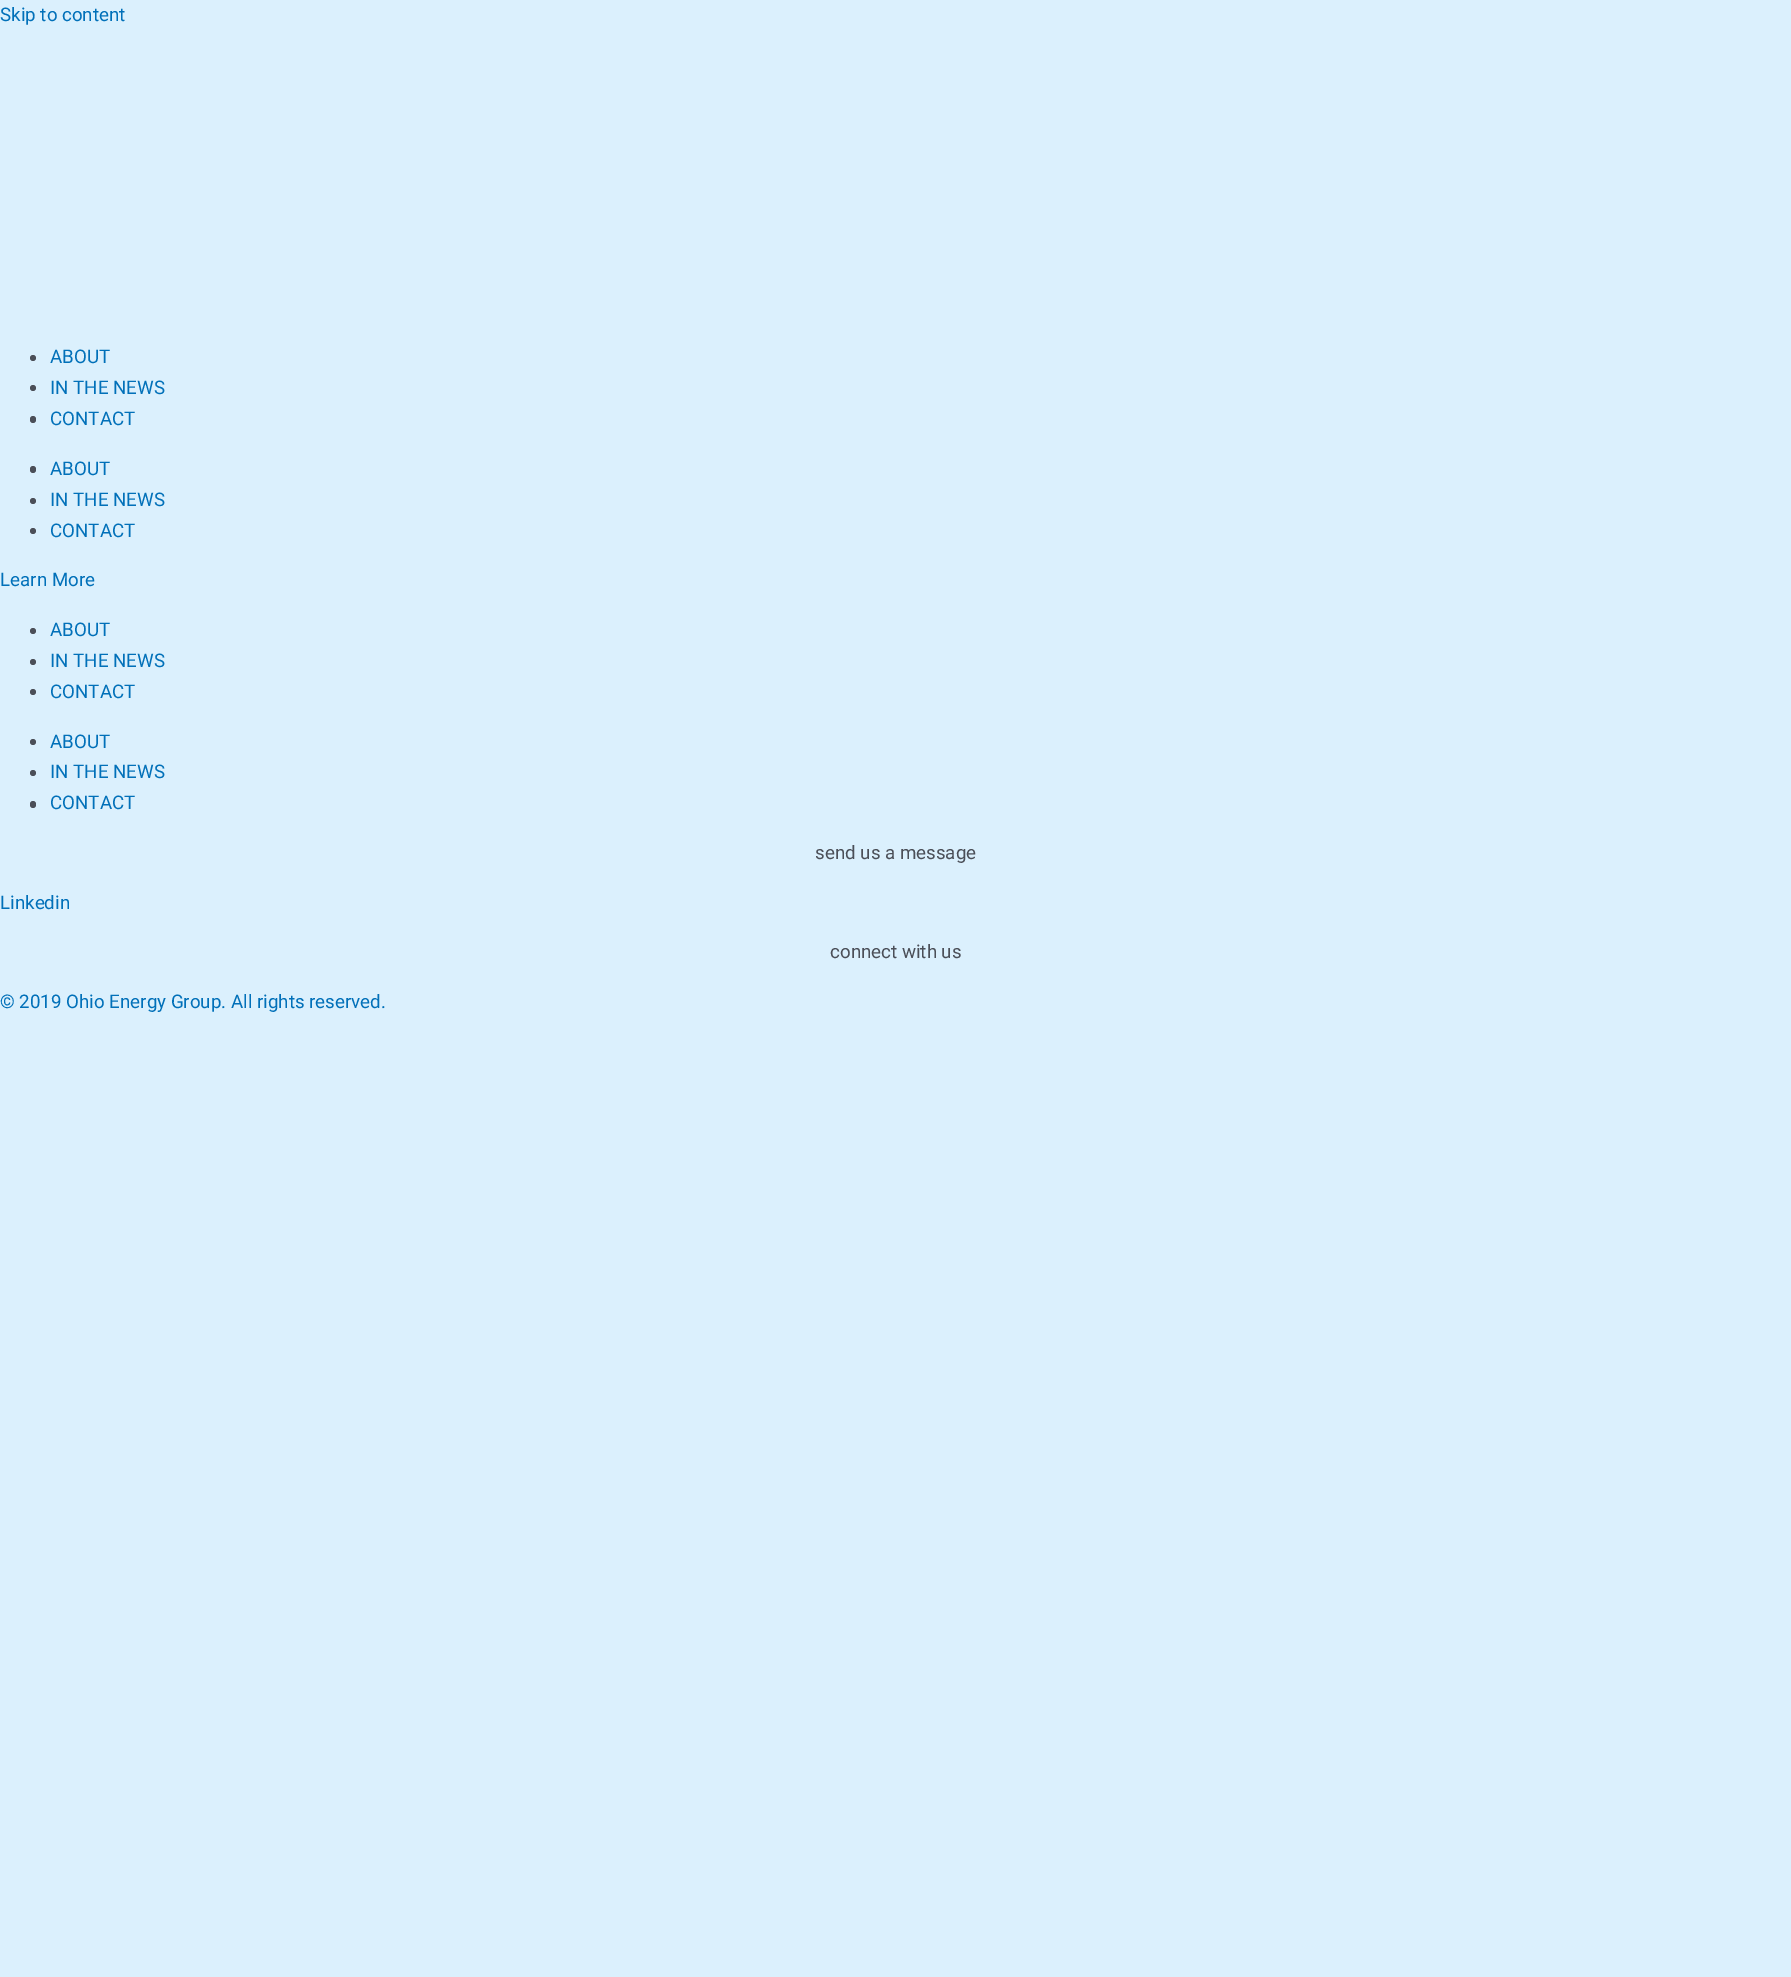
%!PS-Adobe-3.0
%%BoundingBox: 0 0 1791 1977
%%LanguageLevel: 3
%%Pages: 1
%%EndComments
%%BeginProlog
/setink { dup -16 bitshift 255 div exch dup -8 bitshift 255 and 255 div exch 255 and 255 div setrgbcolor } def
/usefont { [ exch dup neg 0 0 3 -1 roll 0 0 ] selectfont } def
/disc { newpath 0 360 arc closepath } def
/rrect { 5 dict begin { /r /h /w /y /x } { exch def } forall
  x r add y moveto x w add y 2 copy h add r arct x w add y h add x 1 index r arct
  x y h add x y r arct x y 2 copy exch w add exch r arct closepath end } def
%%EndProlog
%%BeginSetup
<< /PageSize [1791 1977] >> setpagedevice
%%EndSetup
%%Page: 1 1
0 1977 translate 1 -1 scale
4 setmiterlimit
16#DBF0FD setink
0 0 1791 1977 rectfill
/Roboto-Regular 18.75 usefont
16#0170B9 setink
0 21 moveto (Skip to content) show
16#4B4F58 setink
33 358 3 disc fill
16#0170B9 setink
50 363 moveto (ABOUT) show
16#4B4F58 setink
33 388 3 disc fill
16#0170B9 setink
50 394 moveto (IN THE NEWS) show
16#4B4F58 setink
30 416 6 7 3 rrect fill
16#0170B9 setink
50 425 moveto (CONTACT) show
16#4B4F58 setink
30 466 6 7 3 rrect fill
16#0170B9 setink
50 475 moveto (ABOUT) show
16#4B4F58 setink
33 501 3 disc fill
16#0170B9 setink
50 506 moveto (IN THE NEWS) show
16#4B4F58 setink
33 531 3 disc fill
16#0170B9 setink
50 537 moveto (CONTACT) show
0 586 moveto (Learn More) show
16#4B4F58 setink
33 631 3 disc fill
16#0170B9 setink
50 636 moveto (ABOUT) show
16#4B4F58 setink
33 662 3 disc fill
16#0170B9 setink
50 667 moveto (IN THE NEWS) show
16#4B4F58 setink
33 692 3 disc fill
16#0170B9 setink
50 698 moveto (CONTACT) show
16#4B4F58 setink
33 742 3 disc fill
16#0170B9 setink
50 748 moveto (ABOUT) show
16#4B4F58 setink
33 773 3 disc fill
16#0170B9 setink
50 778 moveto (IN THE NEWS) show
16#4B4F58 setink
30 801 6 7 3 rrect fill
16#0170B9 setink
50 809 moveto (CONTACT) show
16#4B4F58 setink
815 859 moveto (send us a message) show
16#0170B9 setink
0 909 moveto (Linkedin) show
16#4B4F58 setink
830 958 moveto (connect with us) show
16#0170B9 setink
0 1008 moveto (© 2019 Ohio Energy Group. All rights reserved.) show
showpage
%%EOF
